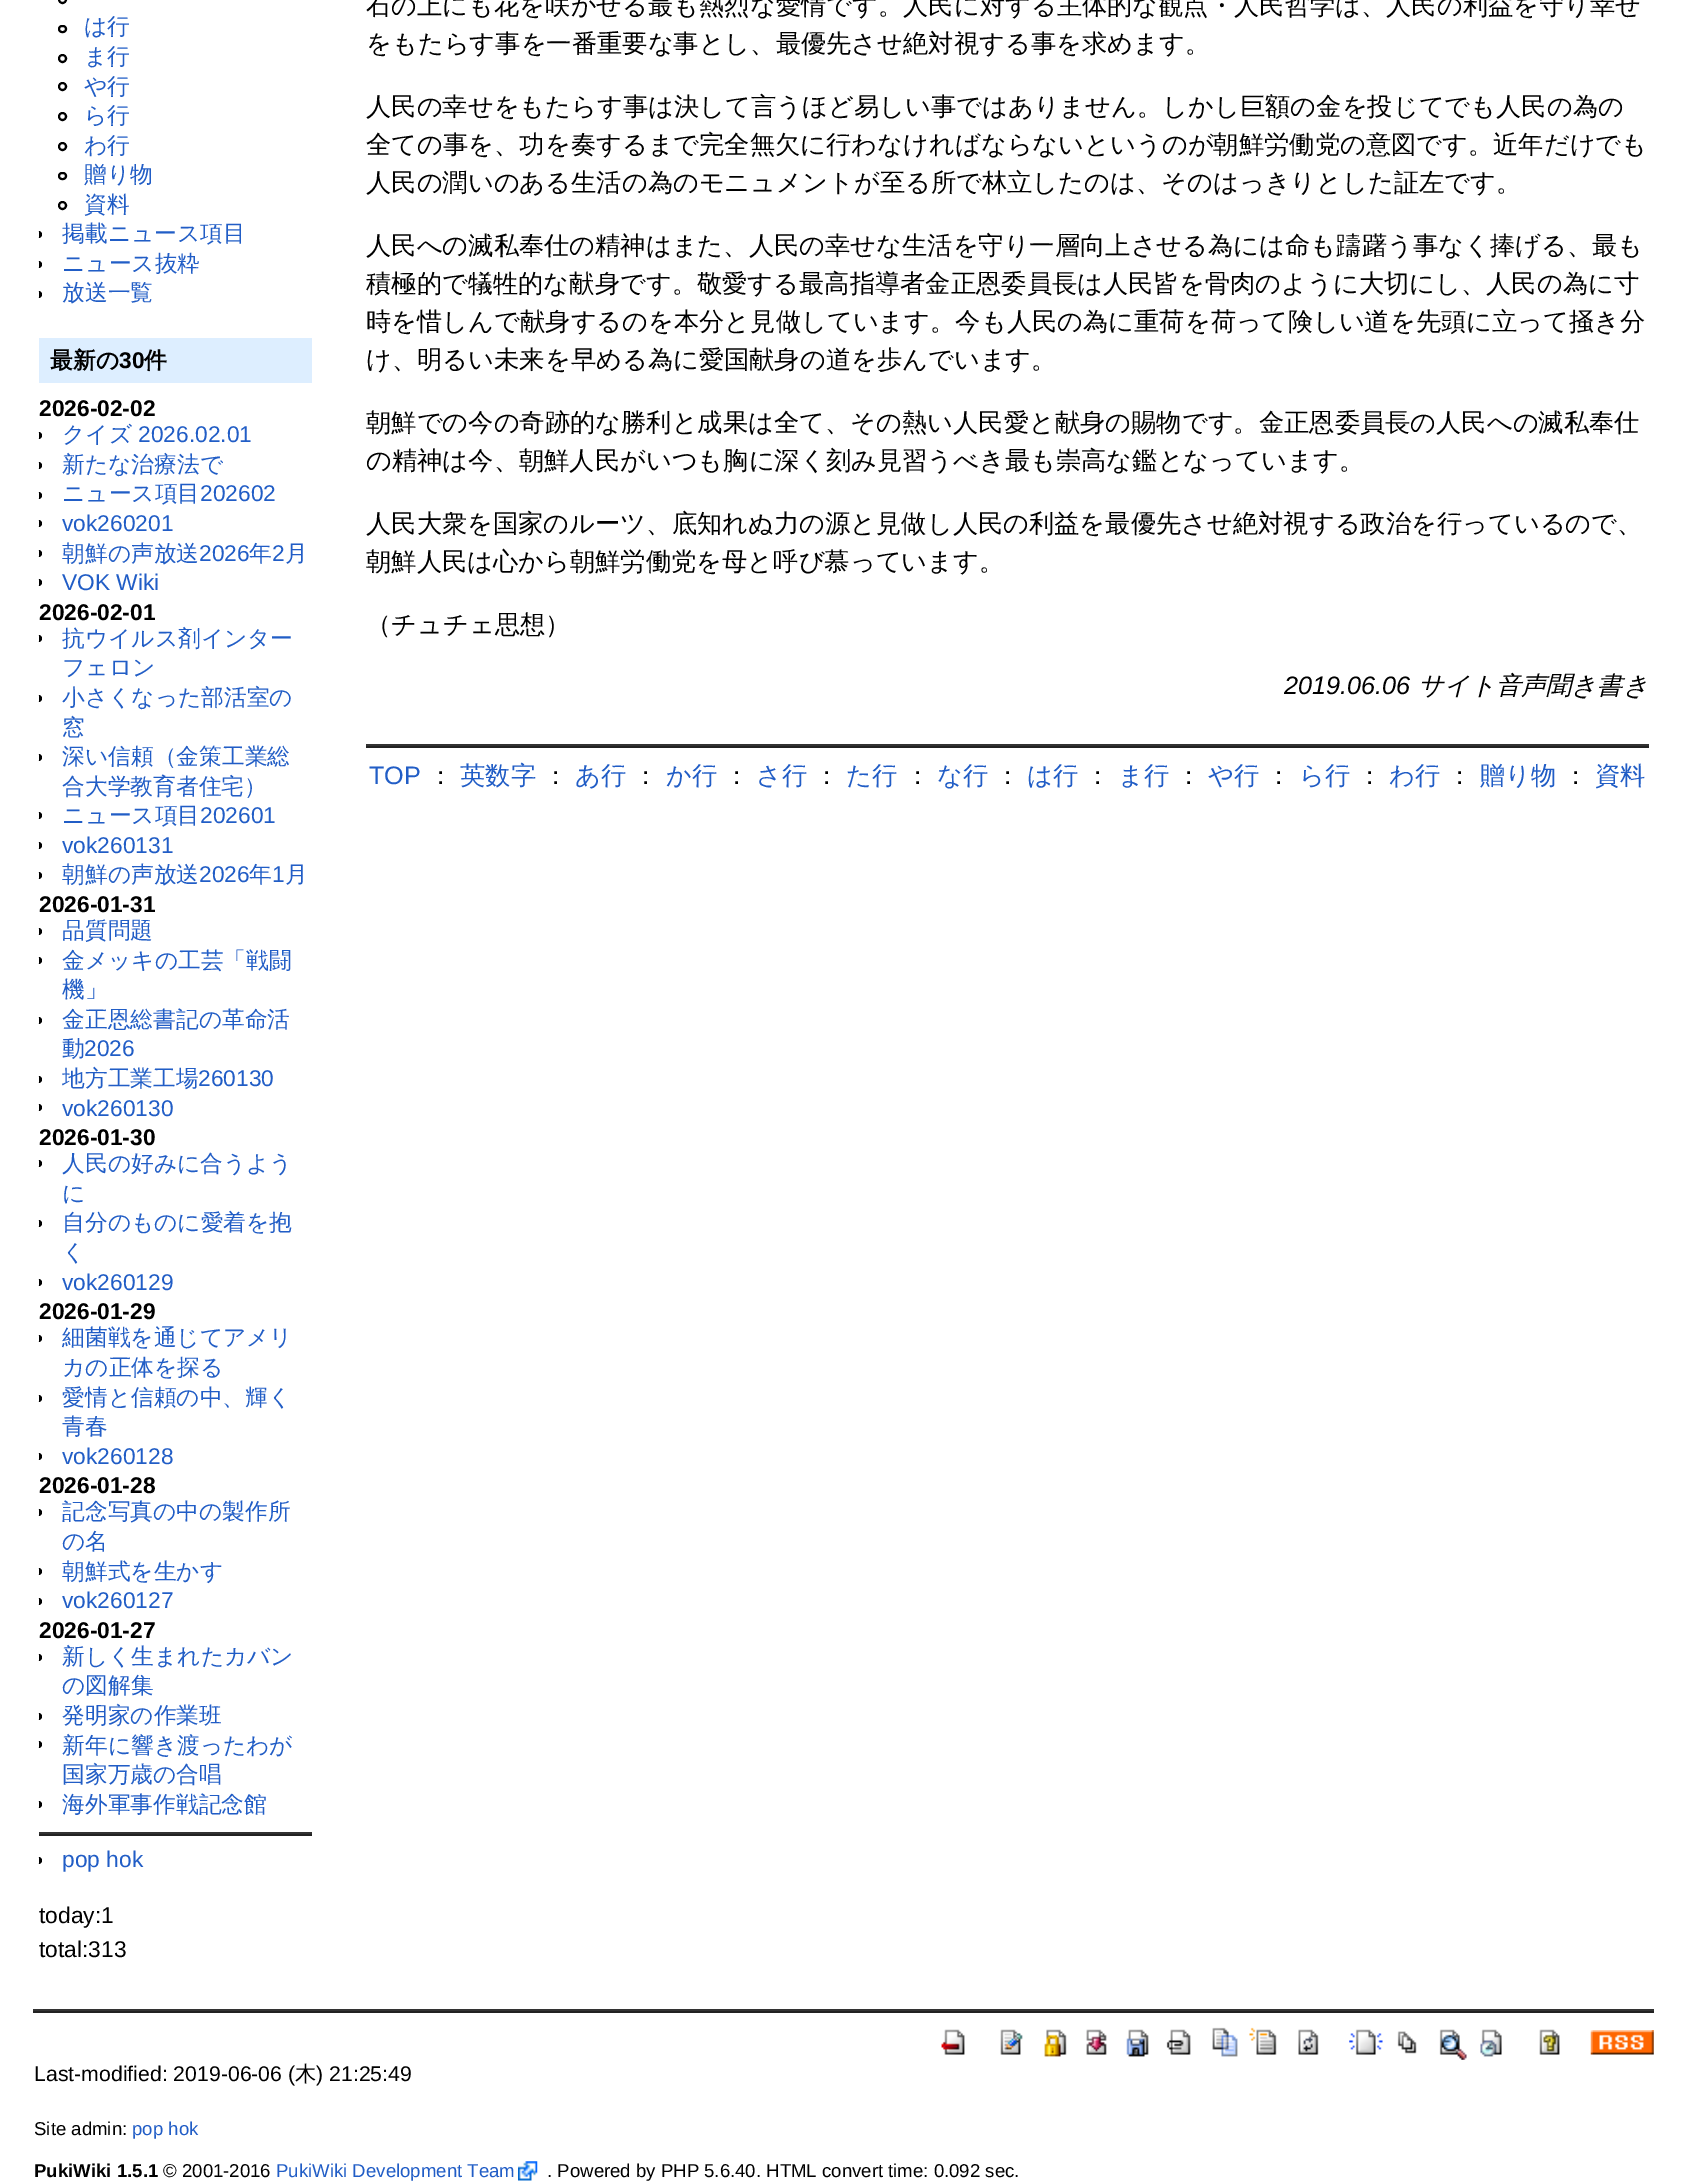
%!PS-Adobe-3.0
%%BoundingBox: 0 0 1686 2184
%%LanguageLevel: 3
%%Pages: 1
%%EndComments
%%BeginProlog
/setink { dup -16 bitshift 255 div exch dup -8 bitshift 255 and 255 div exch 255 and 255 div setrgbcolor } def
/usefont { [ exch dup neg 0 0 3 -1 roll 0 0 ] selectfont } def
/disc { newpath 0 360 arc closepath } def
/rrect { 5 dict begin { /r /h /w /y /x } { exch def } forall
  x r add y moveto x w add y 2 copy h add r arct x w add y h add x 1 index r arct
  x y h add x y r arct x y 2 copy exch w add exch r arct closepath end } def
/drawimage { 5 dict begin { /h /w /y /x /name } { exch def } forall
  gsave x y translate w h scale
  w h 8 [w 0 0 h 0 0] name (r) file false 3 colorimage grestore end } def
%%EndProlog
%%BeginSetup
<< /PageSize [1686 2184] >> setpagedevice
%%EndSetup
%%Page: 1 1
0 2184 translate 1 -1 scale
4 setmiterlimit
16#FFFFFF setink
0 0 1686 2184 rectfill
16#000000 setink
2 setlinewidth
62.5 -0.5 3.5 disc stroke
59 26 7 6 3 rrect stroke
/WenQuanYiZenHei-Medium 22.75 usefont
16#215DC6 setink
84 34 moveto (は行) show
16#000000 setink
62.5 58.5 3.5 disc stroke
16#215DC6 setink
84 64 moveto (ま行) show
16#000000 setink
62.5 86.5 3.5 disc stroke
16#215DC6 setink
84 94 moveto (や行) show
16#000000 setink
62.5 116.5 3.5 disc stroke
16#215DC6 setink
84 123 moveto (ら行) show
16#000000 setink
62.5 146.5 3.5 disc stroke
16#215DC6 setink
84 153 moveto (わ行) show
16#000000 setink
59 173 7 6 3 rrect stroke
16#215DC6 setink
84 182 moveto (贈り物) show
16#000000 setink
62.5 205.5 3.5 disc stroke
16#215DC6 setink
84 212 moveto (資料) show
16#000000 setink
39 231 moveto 38.5 231 lineto 40.5 231 42 232.5 42 234.5 curveto 42 236.5 40.5 238 38.5 238 curveto 39 238 lineto closepath fill
16#215DC6 setink
62 241 moveto (掲載ニュース項目) show
16#000000 setink
39 261 moveto 38.5 261 lineto 40.5 261 42 262.5 42 264.5 curveto 42 266.5 40.5 268 38.5 268 curveto 39 268 lineto closepath fill
16#215DC6 setink
62 271 moveto (ニュース抜粋) show
16#000000 setink
39 291 moveto 38.5 291 lineto 40.5 291 42 292.5 42 294.5 curveto 42 296.5 40.5 298 38.5 298 curveto 39 298 lineto closepath fill
16#215DC6 setink
62 300 moveto (放送一覧) show
16#DDEEFF setink
39 338 273 45 rectfill
/WenQuanYiZenHei-Bold 22.75 usefont
16#000000 setink
50 368 moveto (最新の) show
/LiberationSans-Bold 22.75 usefont
119 368 moveto (30) show
/WenQuanYiZenHei-Bold 22.75 usefont
144 368 moveto (件) show
/LiberationSans-Bold 22.75 usefont
39 416 moveto (2026-02-02) show
39 432 moveto 38.5 432 lineto 40.5 432 42 433.5 42 435.5 curveto 42 437.5 40.5 439 38.5 439 curveto 39 439 lineto closepath fill
/WenQuanYiZenHei-Medium 22.75 usefont
16#215DC6 setink
62 442 moveto (クイズ) show
/LiberationSans-Regular 22.75 usefont
138 442 moveto (2026.02.01) show
16#000000 setink
39 462 moveto 38.5 462 lineto 40.5 462 42 463.5 42 465.5 curveto 42 467.5 40.5 469 38.5 469 curveto 39 469 lineto closepath fill
/WenQuanYiZenHei-Medium 22.75 usefont
16#215DC6 setink
62 472 moveto (新たな治療法で) show
16#000000 setink
39 492 moveto 38.5 492 lineto 40.5 492 42 493.5 42 495.5 curveto 42 497.5 40.5 499 38.5 499 curveto 39 499 lineto closepath fill
16#215DC6 setink
62 501 moveto (ニュース項目) show
/LiberationSans-Regular 22.75 usefont
200 501 moveto (202602) show
16#000000 setink
39 520 moveto 38.5 520 lineto 40.5 520 42 521.5 42 523.5 curveto 42 525.5 40.5 527 38.5 527 curveto 39 527 lineto closepath fill
16#215DC6 setink
62 531 moveto (vok260201) show
16#000000 setink
39 550 moveto 38.5 550 lineto 40.5 550 42 551.5 42 553.5 curveto 42 555.5 40.5 557 38.5 557 curveto 39 557 lineto closepath fill
/WenQuanYiZenHei-Medium 22.75 usefont
16#215DC6 setink
62 561 moveto (朝鮮の声放送) show
/LiberationSans-Regular 22.75 usefont
199 561 moveto (2026) show
/WenQuanYiZenHei-Medium 22.75 usefont
249 561 moveto (年) show
/LiberationSans-Regular 22.75 usefont
272 561 moveto (2) show
/WenQuanYiZenHei-Medium 22.75 usefont
285 561 moveto (月) show
16#000000 setink
39 579 moveto 38.5 579 lineto 40.5 579 42 580.5 42 582.5 curveto 42 584.5 40.5 586 38.5 586 curveto 39 586 lineto closepath fill
/LiberationSans-Regular 22.75 usefont
16#215DC6 setink
62 590 moveto (VOK Wiki) show
/LiberationSans-Bold 22.75 usefont
16#000000 setink
39 620 moveto (2026-02-01) show
39 635 moveto 38.5 635 lineto 40.5 635 42 636.5 42 638.5 curveto 42 640.5 40.5 642 38.5 642 curveto 39 642 lineto closepath fill
/WenQuanYiZenHei-Medium 22.75 usefont
16#215DC6 setink
62 646 moveto (抗ウイルス剤インター) show
62 675 moveto (フェロン) show
16#000000 setink
39 695 moveto 38.5 695 lineto 40.5 695 42 696.5 42 698.5 curveto 42 700.5 40.5 702 38.5 702 curveto 39 702 lineto closepath fill
16#215DC6 setink
62 705 moveto (小さくなった部活室の) show
62 735 moveto (窓) show
16#000000 setink
39 754 moveto 38.5 754 lineto 40.5 754 42 755.5 42 757.5 curveto 42 759.5 40.5 761 38.5 761 curveto 39 761 lineto closepath fill
16#215DC6 setink
62 764 moveto (深い信頼（金策工業総) show
62 794 moveto (合大学教育者住宅）) show
16#000000 setink
39 812 moveto 38.5 812 lineto 40.5 812 42 813.5 42 815.5 curveto 42 817.5 40.5 819 38.5 819 curveto 39 819 lineto closepath fill
16#215DC6 setink
62 823 moveto (ニュース項目) show
/LiberationSans-Regular 22.75 usefont
200 823 moveto (202601) show
16#000000 setink
39 842 moveto 38.5 842 lineto 40.5 842 42 843.5 42 845.5 curveto 42 847.5 40.5 849 38.5 849 curveto 39 849 lineto closepath fill
16#215DC6 setink
62 853 moveto (vok260131) show
16#000000 setink
39 872 moveto 38.5 872 lineto 40.5 872 42 873.5 42 875.5 curveto 42 877.5 40.5 879 38.5 879 curveto 39 879 lineto closepath fill
/WenQuanYiZenHei-Medium 22.75 usefont
16#215DC6 setink
62 882 moveto (朝鮮の声放送) show
/LiberationSans-Regular 22.75 usefont
199 882 moveto (2026) show
/WenQuanYiZenHei-Medium 22.75 usefont
249 882 moveto (年) show
/LiberationSans-Regular 22.75 usefont
272 882 moveto (1) show
/WenQuanYiZenHei-Medium 22.75 usefont
285 882 moveto (月) show
/LiberationSans-Bold 22.75 usefont
16#000000 setink
39 912 moveto (2026-01-31) show
39 928 moveto 38.5 928 lineto 40.5 928 42 929.5 42 931.5 curveto 42 933.5 40.5 935 38.5 935 curveto 39 935 lineto closepath fill
/WenQuanYiZenHei-Medium 22.75 usefont
16#215DC6 setink
62 938 moveto (品質問題) show
16#000000 setink
39 957 moveto 38.5 957 lineto 40.5 957 42 958.5 42 960.5 curveto 42 962.5 40.5 964 38.5 964 curveto 39 964 lineto closepath fill
16#215DC6 setink
62 968 moveto (金メッキの工芸「戦闘) show
62 997 moveto (機」) show
16#000000 setink
39 1017 moveto 38.5 1017 lineto 40.5 1017 42 1018.5 42 1020.5 curveto 42 1022.5 40.5 1024 38.5 1024 curveto 39 1024 lineto closepath fill
16#215DC6 setink
62 1027 moveto (金正恩総書記の革命活) show
62 1056 moveto (動) show
/LiberationSans-Regular 22.75 usefont
84 1056 moveto (2026) show
16#000000 setink
39 1076 moveto 38.5 1076 lineto 40.5 1076 42 1077.5 42 1079.5 curveto 42 1081.5 40.5 1083 38.5 1083 curveto 39 1083 lineto closepath fill
/WenQuanYiZenHei-Medium 22.75 usefont
16#215DC6 setink
62 1086 moveto (地方工業工場) show
/LiberationSans-Regular 22.75 usefont
198 1086 moveto (260130) show
16#000000 setink
39 1104 moveto 38.5 1104 lineto 40.5 1104 42 1105.5 42 1107.5 curveto 42 1109.5 40.5 1111 38.5 1111 curveto 39 1111 lineto closepath fill
16#215DC6 setink
62 1116 moveto (vok260130) show
/LiberationSans-Bold 22.75 usefont
16#000000 setink
39 1145 moveto (2026-01-30) show
39 1160 moveto 38.5 1160 lineto 40.5 1160 42 1161.5 42 1163.5 curveto 42 1165.5 40.5 1167 38.5 1167 curveto 39 1167 lineto closepath fill
/WenQuanYiZenHei-Medium 22.75 usefont
16#215DC6 setink
62 1171 moveto (人民の好みに合うよう) show
62 1201 moveto (に) show
16#000000 setink
39 1220 moveto 38.5 1220 lineto 40.5 1220 42 1221.5 42 1223.5 curveto 42 1225.5 40.5 1227 38.5 1227 curveto 39 1227 lineto closepath fill
16#215DC6 setink
62 1230 moveto (自分のものに愛着を抱) show
62 1260 moveto (く) show
16#000000 setink
39 1279 moveto 38.5 1279 lineto 40.5 1279 42 1280.5 42 1282.5 curveto 42 1284.5 40.5 1286 38.5 1286 curveto 39 1286 lineto closepath fill
/LiberationSans-Regular 22.75 usefont
16#215DC6 setink
62 1290 moveto (vok260129) show
/LiberationSans-Bold 22.75 usefont
16#000000 setink
39 1319 moveto (2026-01-29) show
39 1335 moveto 38.5 1335 lineto 40.5 1335 42 1336.5 42 1338.5 curveto 42 1340.5 40.5 1342 38.5 1342 curveto 39 1342 lineto closepath fill
/WenQuanYiZenHei-Medium 22.75 usefont
16#215DC6 setink
62 1345 moveto (細菌戦を通じてアメリ) show
62 1375 moveto (カの正体を探る) show
16#000000 setink
39 1395 moveto 38.5 1395 lineto 40.5 1395 42 1396.5 42 1398.5 curveto 42 1400.5 40.5 1402 38.5 1402 curveto 39 1402 lineto closepath fill
16#215DC6 setink
62 1405 moveto (愛情と信頼の中、輝く) show
62 1434 moveto (青春) show
16#000000 setink
39 1453 moveto 38.5 1453 lineto 40.5 1453 42 1454.5 42 1456.5 curveto 42 1458.5 40.5 1460 38.5 1460 curveto 39 1460 lineto closepath fill
/LiberationSans-Regular 22.75 usefont
16#215DC6 setink
62 1464 moveto (vok260128) show
/LiberationSans-Bold 22.75 usefont
16#000000 setink
39 1493 moveto (2026-01-28) show
39 1509 moveto 38.5 1509 lineto 40.5 1509 42 1510.5 42 1512.5 curveto 42 1514.5 40.5 1516 38.5 1516 curveto 39 1516 lineto closepath fill
/WenQuanYiZenHei-Medium 22.75 usefont
16#215DC6 setink
62 1519 moveto (記念写真の中の製作所) show
62 1549 moveto (の名) show
16#000000 setink
39 1568 moveto 38.5 1568 lineto 40.5 1568 42 1569.5 42 1571.5 curveto 42 1573.5 40.5 1575 38.5 1575 curveto 39 1575 lineto closepath fill
16#215DC6 setink
62 1579 moveto (朝鮮式を生かす) show
16#000000 setink
39 1598 moveto 38.5 1598 lineto 40.5 1598 42 1599.5 42 1601.5 curveto 42 1603.5 40.5 1605 38.5 1605 curveto 39 1605 lineto closepath fill
/LiberationSans-Regular 22.75 usefont
16#215DC6 setink
62 1608 moveto (vok260127) show
/LiberationSans-Bold 22.75 usefont
16#000000 setink
39 1638 moveto (2026-01-27) show
39 1654 moveto 38.5 1654 lineto 40.5 1654 42 1655.5 42 1657.5 curveto 42 1659.5 40.5 1661 38.5 1661 curveto 39 1661 lineto closepath fill
/WenQuanYiZenHei-Medium 22.75 usefont
16#215DC6 setink
62 1664 moveto (新しく生まれたカバン) show
62 1693 moveto (の図解集) show
16#000000 setink
39 1713 moveto 38.5 1713 lineto 40.5 1713 42 1714.5 42 1716.5 curveto 42 1718.5 40.5 1720 38.5 1720 curveto 39 1720 lineto closepath fill
16#215DC6 setink
62 1723 moveto (発明家の作業班) show
16#000000 setink
39 1741 moveto 38.5 1741 lineto 40.5 1741 42 1742.5 42 1744.5 curveto 42 1746.5 40.5 1748 38.5 1748 curveto 39 1748 lineto closepath fill
16#215DC6 setink
62 1753 moveto (新年に響き渡ったわが) show
62 1782 moveto (国家万歳の合唱) show
16#000000 setink
39 1801 moveto 38.5 1801 lineto 40.5 1801 42 1802.5 42 1804.5 curveto 42 1806.5 40.5 1808 38.5 1808 curveto 39 1808 lineto closepath fill
16#215DC6 setink
62 1812 moveto (海外軍事作戦記念館) show
16#333333 setink
39 1832 273 2 rectfill
16#222222 setink
39 1834 273 2 rectfill
16#000000 setink
39 1857 moveto 38.5 1857 lineto 40.5 1857 42 1858.5 42 1860.5 curveto 42 1862.5 40.5 1864 38.5 1864 curveto 39 1864 lineto closepath fill
/LiberationSans-Regular 22.75 usefont
16#215DC6 setink
62 1867 moveto (pop hok) show
16#000000 setink
39 1923 moveto (today:1) show
39 1957 moveto (total:313) show
/WenQuanYiZenHei-Medium 25.27 usefont
[
    [(石の上にも花を咲かせる最も熱烈な愛情です。人民に対する主体的な観点・人民哲学は、人民の利益を守り幸せ) 366 14]
    [(をもたらす事を一番重要な事とし、最優先させ絶対視する事を求めます。) 366 52]
    [(人民の幸せをもたらす事は決して言うほど易しい事ではありません。しかし巨額の金を投じてでも人民の為の) 366 115]
    [(全ての事を、功を奏するまで完全無欠に行わなければならないというのが朝鮮労働党の意図です。近年だけでも) 366 153]
    [(人民の潤いのある生活の為のモニュメントが至る所で林立したのは、そのはっきりとした証左です。) 366 191]
    [(人民への滅私奉仕の精神はまた、人民の幸せな生活を守り一層向上させる為には命も躊躇う事なく捧げる、最も) 366 254]
    [(積極的で犠牲的な献身です。敬愛する最高指導者金正恩委員長は人民皆を骨肉のように大切にし、人民の為に寸) 366 292]
    [(時を惜しんで献身するのを本分と見做しています。今も人民の為に重荷を荷って険しい道を先頭に立って掻き分) 366 330]
    [(け、明るい未来を早める為に愛国献身の道を歩んでいます。) 366 368]
    [(朝鮮での今の奇跡的な勝利と成果は全て、その熱い人民愛と献身の賜物です。金正恩委員長の人民への滅私奉仕) 366 431]
    [(の精神は今、朝鮮人民がいつも胸に深く刻み見習うべき最も崇高な鑑となっています。) 366 469]
    [(人民大衆を国家のルーツ、底知れぬ力の源と見做し人民の利益を最優先させ絶対視する政治を行っているので、) 366 532]
    [(朝鮮人民は心から朝鮮労働党を母と呼び慕っています。) 366 570]
    [(（チュチェ思想）) 366 633]
] { aload pop moveto show } forall
/LiberationSans-Italic 25.27 usefont
1284 694 moveto (2019.06.06) show
/WenQuanYiZenHei-MediumItalic 25.27 usefont
1418 694 moveto (サイト音声聞き書き) show
16#333333 setink
366 744 1283 2 rectfill
16#222222 setink
366 746 1283 2 rectfill
/LiberationSans-Regular 25.27 usefont
16#215DC6 setink
369 784 moveto (TOP) show
/WenQuanYiZenHei-Medium 25.27 usefont
16#000000 setink
428 784 moveto (：) show
16#215DC6 setink
460 784 moveto (英数字) show
16#000000 setink
543 784 moveto (：) show
16#215DC6 setink
575 784 moveto (あ行) show
16#000000 setink
633 784 moveto (：) show
16#215DC6 setink
666 784 moveto (か行) show
16#000000 setink
724 784 moveto (：) show
16#215DC6 setink
756 784 moveto (さ行) show
16#000000 setink
814 784 moveto (：) show
16#215DC6 setink
846 784 moveto (た行) show
16#000000 setink
905 784 moveto (：) show
16#215DC6 setink
937 784 moveto (な行) show
16#000000 setink
995 784 moveto (：) show
16#215DC6 setink
1027 784 moveto (は行) show
16#000000 setink
1085 784 moveto (：) show
16#215DC6 setink
1118 784 moveto (ま行) show
16#000000 setink
1176 784 moveto (：) show
16#215DC6 setink
1208 784 moveto (や行) show
16#000000 setink
1266 784 moveto (：) show
16#215DC6 setink
1299 784 moveto (ら行) show
16#000000 setink
1357 784 moveto (：) show
16#215DC6 setink
1389 784 moveto (わ行) show
16#000000 setink
1447 784 moveto (：) show
16#215DC6 setink
1480 784 moveto (贈り物) show
16#000000 setink
1563 784 moveto (：) show
16#215DC6 setink
1595 784 moveto (資料) show
16#333333 setink
33 2009 1621 2 rectfill
16#222222 setink
33 2011 1621 2 rectfill
(img1.raw) 941 2029 24 26 drawimage
(img2.raw) 1000 2029 23 26 drawimage
(img3.raw) 1044 2029 23 28 drawimage
(img4.raw) 1086 2029 21 26 drawimage
(img5.raw) 1126 2029 23 28 drawimage
(img6.raw) 1166 2029 25 26 drawimage
(img7.raw) 1212 2027 26 30 drawimage
(img8.raw) 1249 2027 28 28 drawimage
(img9.raw) 1298 2029 21 26 drawimage
(img10.raw) 1349 2029 34 26 drawimage
(img11.raw) 1397 2031 20 23 drawimage
(img12.raw) 1439 2029 28 31 drawimage
(img13.raw) 1480 2029 22 28 drawimage
(img14.raw) 1539 2029 21 26 drawimage
(img15.raw) 1590 2030 64 25 drawimage
/LiberationSans-Regular 21.25 usefont
16#000000 setink
34 2081 moveto (Last-modified: 2019-06-06 \() show
/WenQuanYiZenHei-Medium 21.25 usefont
295 2081 moveto (木) show
/LiberationSans-Regular 21.25 usefont
316 2081 moveto (\) 21:25:49) show
/LiberationSans-Regular 18.6 usefont
34 2135 moveto (Site admin:) show
16#215DC6 setink
132 2135 moveto (pop hok) show
/LiberationSans-Bold 18.6 usefont
16#000000 setink
34 2177 moveto (PukiWiki 1.5.1) show
/LiberationSans-Regular 18.6 usefont
163 2177 moveto (© 2001-2016) show
16#215DC6 setink
276 2177 moveto (PukiWiki Development Team) show
(img16.raw) 518 2161 20 20 drawimage
16#000000 setink
547 2177 moveto (. Powered by PHP 5.6.40. HTML convert time: 0.092 sec.) show
showpage
%%EOF
